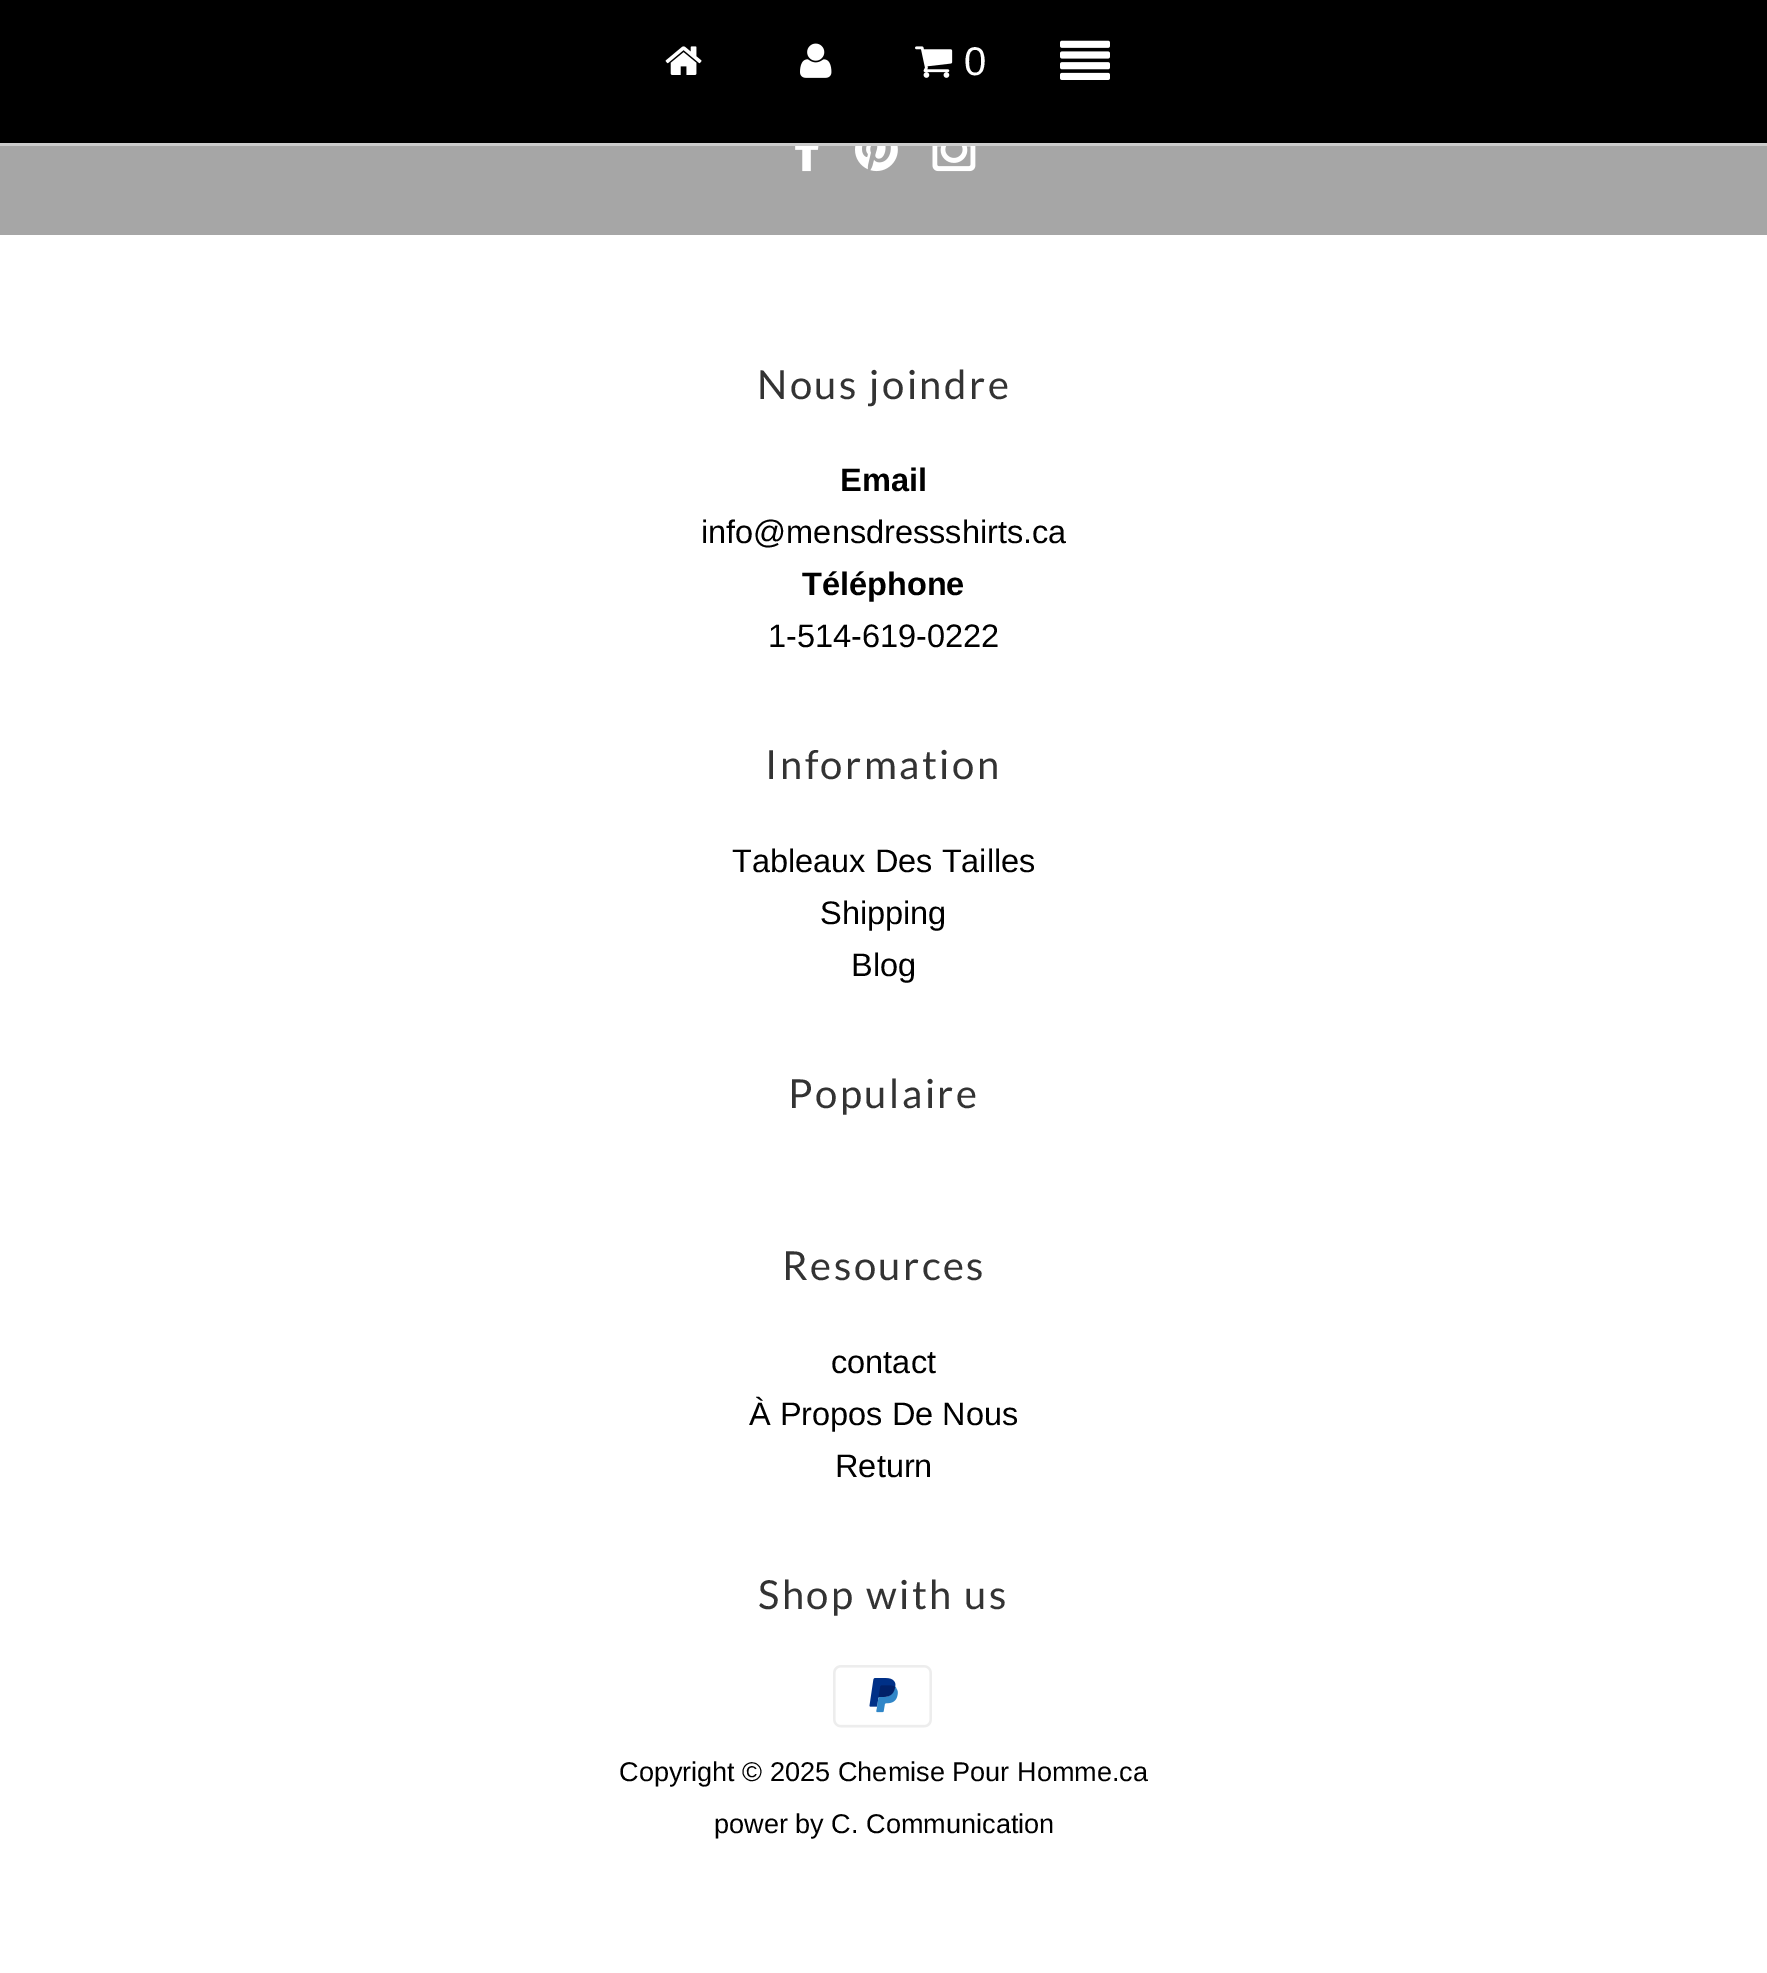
%!PS-Adobe-3.0
%%BoundingBox: 0 0 1767 1973
%%LanguageLevel: 3
%%Pages: 1
%%EndComments
%%BeginProlog
/setink { dup -16 bitshift 255 div exch dup -8 bitshift 255 and 255 div exch 255 and 255 div setrgbcolor } def
/usefont { [ exch dup neg 0 0 3 -1 roll 0 0 ] selectfont } def
/drawimage { 5 dict begin { /h /w /y /x /name } { exch def } forall
  gsave x y translate w h scale
  w h 8 [w 0 0 h 0 0] name (r) file false 3 colorimage grestore end } def
%%EndProlog
%%BeginSetup
<< /PageSize [1767 1973] >> setpagedevice
%%EndSetup
%%Page: 1 1
0 1973 translate 1 -1 scale
4 setmiterlimit
16#FFFFFF setink
0 0 1767 1973 rectfill
16#000000 setink
0 0 1767 143 rectfill
16#CBCBCB setink
0 143 1767 3 rectfill
(img1.raw) 665 46 37 29 drawimage
(img2.raw) 800 43 32 35 drawimage
(img3.raw) 915 46 38 32 drawimage
/LiberationSans-Regular 40 usefont
16#FFFFFF setink
964 75 moveto (0) show
(img4.raw) 1060 40 50 40 drawimage
16#A6A6A6 setink
0 146 1767 89 rectfill
(img5.raw) 795 146 24 26 drawimage
(img6.raw) 855 146 43 26 drawimage
(img7.raw) 932 146 44 26 drawimage
/Lato-Regular 40 usefont
16#333333 setink
757 399 moveto 2.5 0 (Nous joindre) ashow
/LiberationSans-Bold 32.5 usefont
16#000000 setink
840 491 moveto (Email) show
/LiberationSans-Regular 32.5 usefont
701 543 moveto (info@mensdressshirts.ca) show
/LiberationSans-Bold 32.5 usefont
802 595 moveto (Téléphone) show
/LiberationSans-Regular 32.5 usefont
768 647 moveto (1-514-619-0222) show
/Lato-Regular 40 usefont
16#333333 setink
765 779 moveto 2.5 0 (Information) ashow
/LiberationSans-Regular 32.5 usefont
16#000000 setink
[
    [(Tableaux Des Tailles) 732 872]
    [(Shipping) 820 924]
    [(Blog) 851 976]
] { aload pop moveto show } forall
/Lato-Regular 40 usefont
16#333333 setink
788 1108 moveto 2.5 0 (Populaire) ashow
782 1280 moveto 2.5 0 (Resources) ashow
/LiberationSans-Regular 32.5 usefont
16#000000 setink
[
    [(contact) 831 1373]
    [(À Propos De Nous) 749 1425]
    [(Return) 835 1477]
] { aload pop moveto show } forall
/Lato-Regular 40 usefont
16#333333 setink
758 1609 moveto 2.5 0 (Shop with us) ashow
(img8.raw) 833 1665 99 63 drawimage
/LiberationSans-Regular 27.1 usefont
16#000000 setink
619 1781 moveto (Copyright © 2025 Chemise Pour Homme.ca) show
714 1833 moveto (power by C. Communication) show
showpage
%%EOF
